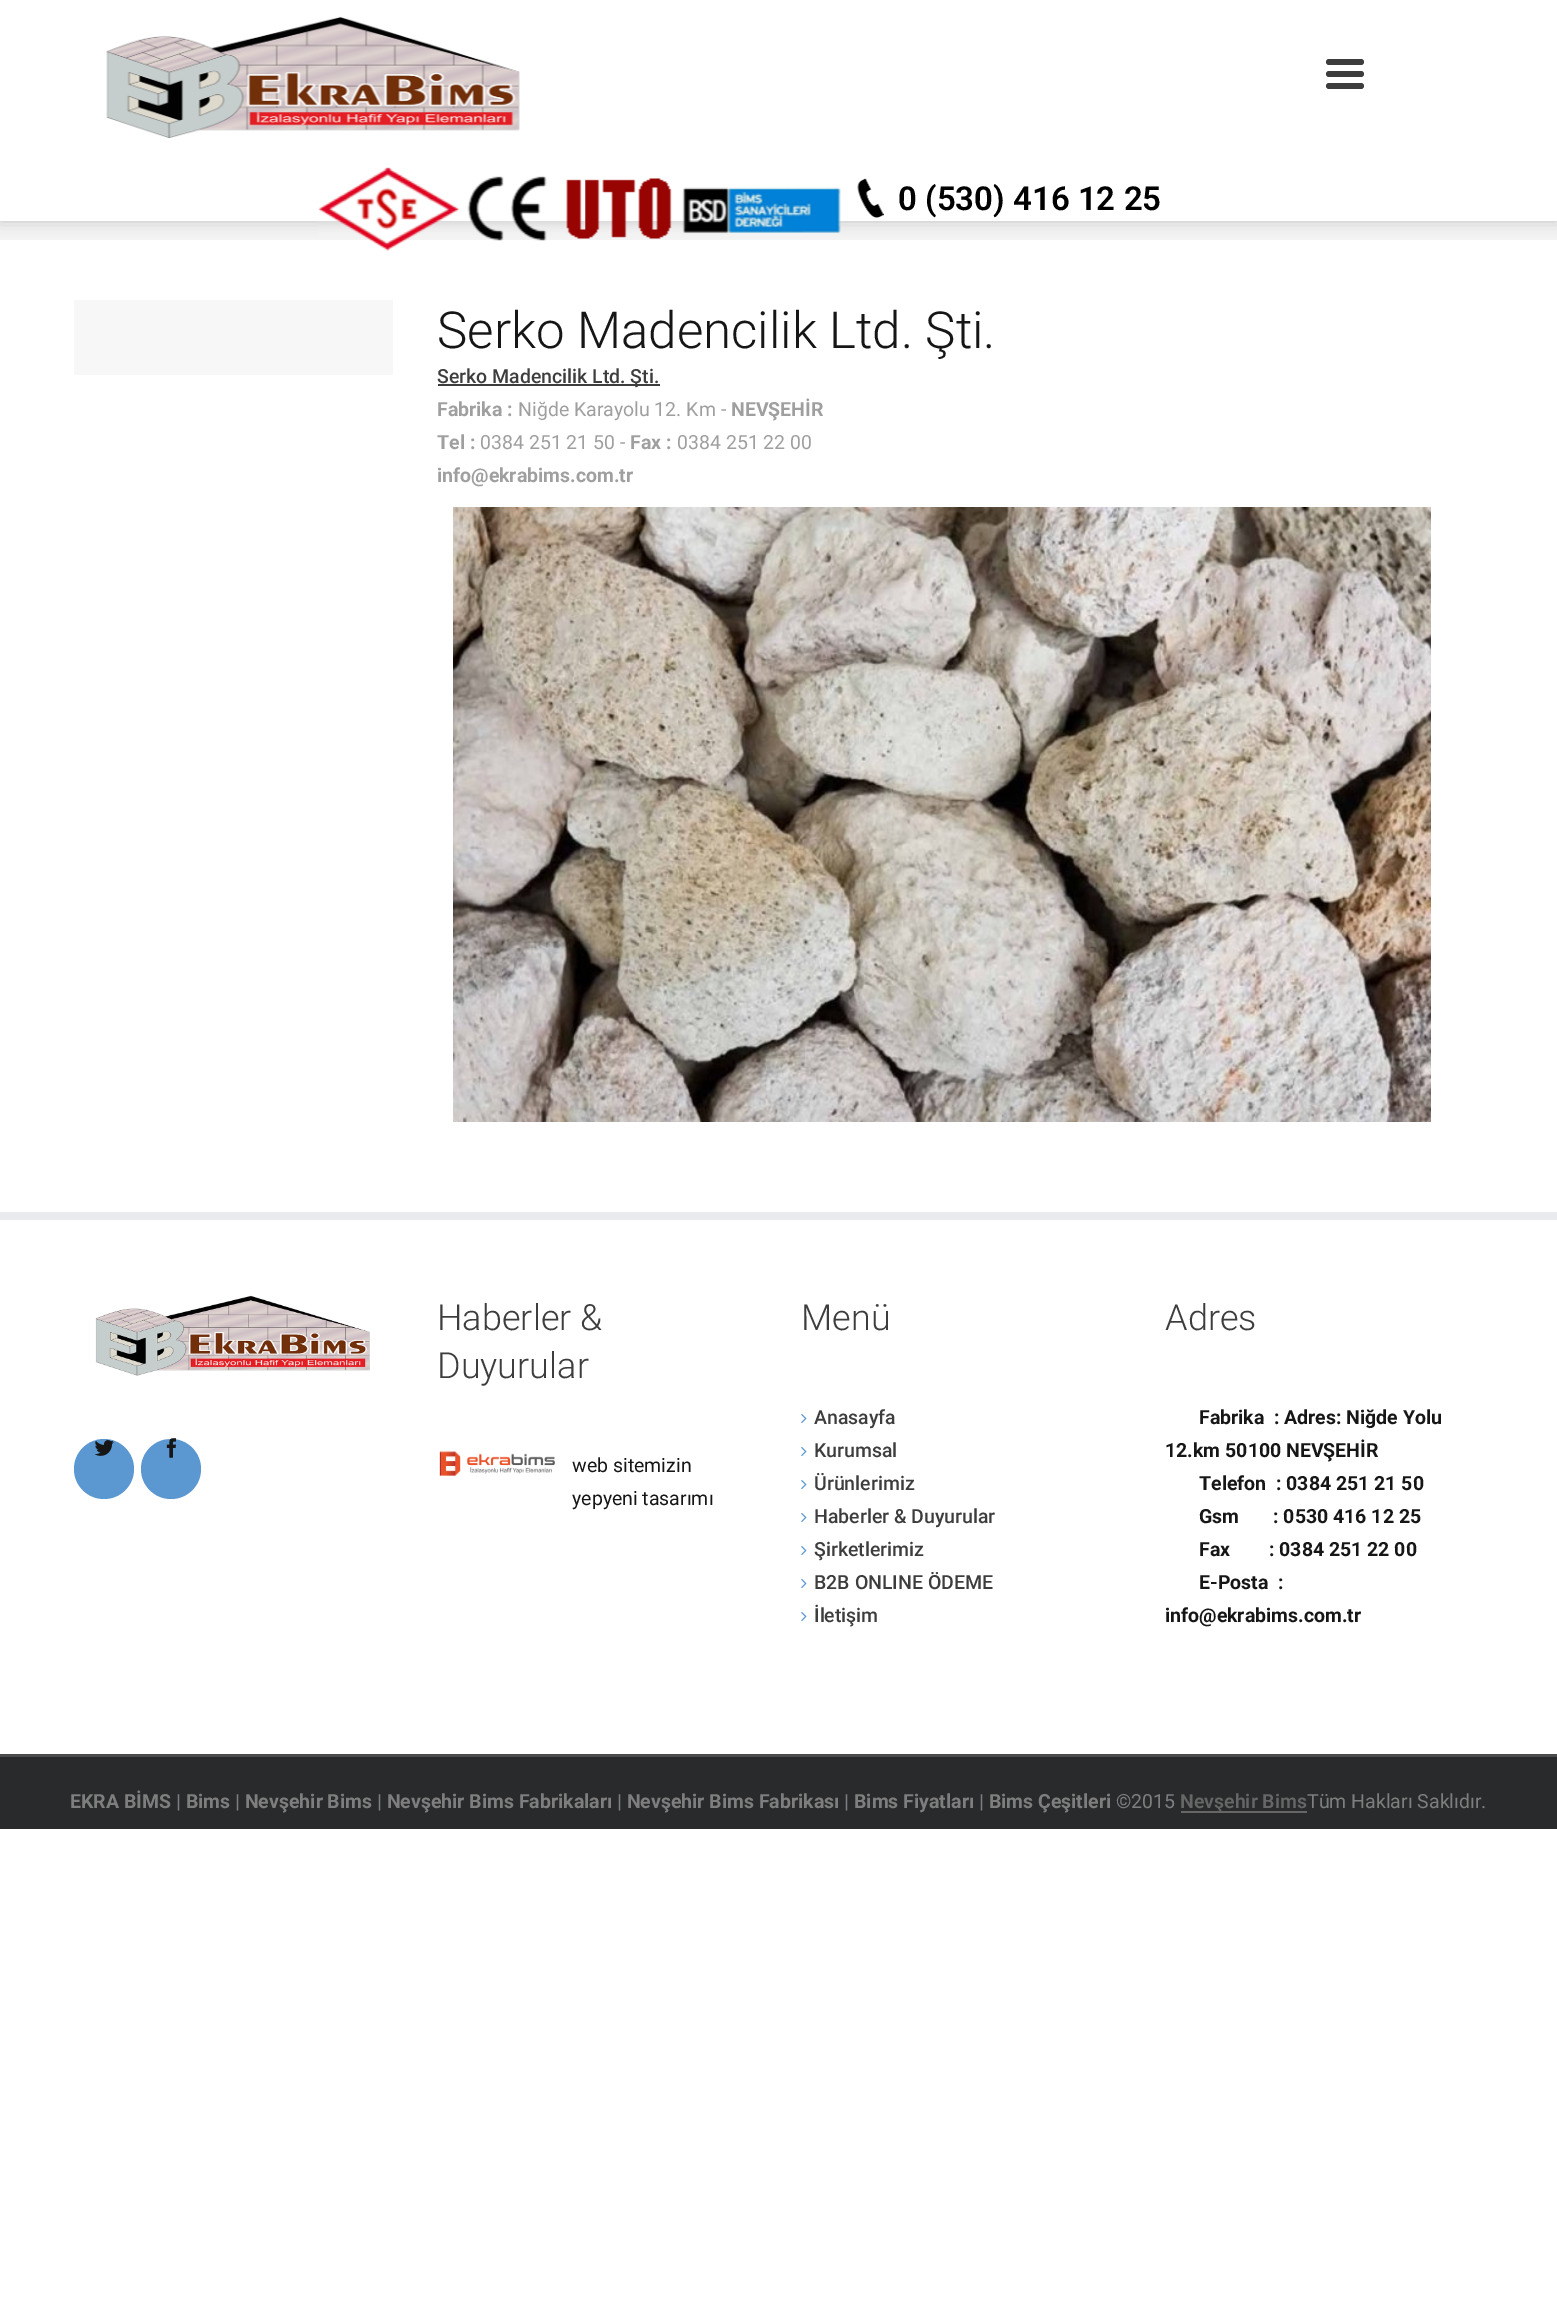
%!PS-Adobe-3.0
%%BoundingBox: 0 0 1557 2317
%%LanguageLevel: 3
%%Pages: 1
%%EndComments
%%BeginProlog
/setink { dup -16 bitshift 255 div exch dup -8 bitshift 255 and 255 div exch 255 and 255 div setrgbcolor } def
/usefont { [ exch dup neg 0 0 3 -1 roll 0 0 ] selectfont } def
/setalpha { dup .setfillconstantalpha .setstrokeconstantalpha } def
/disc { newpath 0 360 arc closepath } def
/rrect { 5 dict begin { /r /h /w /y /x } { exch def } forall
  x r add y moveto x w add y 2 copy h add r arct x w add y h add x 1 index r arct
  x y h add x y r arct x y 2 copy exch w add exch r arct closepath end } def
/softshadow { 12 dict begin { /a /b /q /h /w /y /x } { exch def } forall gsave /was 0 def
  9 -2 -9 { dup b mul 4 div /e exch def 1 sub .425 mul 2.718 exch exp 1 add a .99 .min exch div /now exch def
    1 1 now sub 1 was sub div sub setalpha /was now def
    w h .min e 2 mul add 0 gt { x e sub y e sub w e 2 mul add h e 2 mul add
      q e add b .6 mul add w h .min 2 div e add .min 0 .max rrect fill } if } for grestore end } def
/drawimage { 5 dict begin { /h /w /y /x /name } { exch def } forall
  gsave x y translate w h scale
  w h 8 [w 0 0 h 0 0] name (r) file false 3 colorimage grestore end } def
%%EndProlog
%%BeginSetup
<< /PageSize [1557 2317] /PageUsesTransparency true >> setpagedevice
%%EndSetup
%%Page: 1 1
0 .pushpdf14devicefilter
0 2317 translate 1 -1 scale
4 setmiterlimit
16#FFFFFF setink
0 0 1557 2317 rectfill
16#F4F4F4 setink
0 221 1557 19 rectfill
16#000000 setink
0 0 1557 221 0 7.5 0.2 softshadow
16#FFFFFF setink
0 0 1557 221 rectfill
(img1.raw) 106 16 414 122 drawimage
16#3D3D3D setink
1326 83 38 6 3 rrect fill
1326 71 38 6 3 rrect fill
1326 59 38 6 3 rrect fill
(img2.raw) 318 167 523 84 drawimage
(img3.raw) 857 178 27 40 drawimage
/Roboto-SemiBold 33 usefont
16#000000 setink
898 210 moveto (0 \(530\) 416 12 25) show
16#F7F7F7 setink
74 300 319 75 rectfill
/Roboto-Light 51 usefont
16#161616 setink
437 348 moveto (Serko Madencilik Ltd. Şti.) show
16#3D3D3D setink
438 384 222 2 rectfill
/Roboto-Medium 19.5 usefont
437 383 moveto (Serko Madencilik Ltd. Şti.) show
/Roboto-Bold 19.5 usefont
16#9F9F9F setink
437 416 moveto (Fabrika :) show
/Roboto-Regular 19.5 usefont
518 416 moveto (Niğde Karayolu 12. Km -) show
/Roboto-Bold 19.5 usefont
731 416 moveto (NEVŞEHİR) show
437 449 moveto (Tel :) show
/Roboto-Regular 19.5 usefont
480 449 moveto (0384 251 21 50 -) show
/Roboto-Bold 19.5 usefont
630 449 moveto (Fax :) show
/Roboto-Regular 19.5 usefont
677 449 moveto (0384 251 22 00) show
/Roboto-Bold 19.5 usefont
437 482 moveto (info@ekrabims.com.tr) show
(img4.raw) 453 507 978 615 drawimage
16#E9EAEE setink
0 1212 1557 8 rectfill
(img5.raw) 95 1295 275 81 drawimage
16#5B97D1 setink
104 1469 30 disc fill
(img6.raw) 94 1440 20 16 drawimage
171 1469 30 disc fill
(img7.raw) 166 1438 10 20 drawimage
/Roboto-Light 36 usefont
16#3D3D3D setink
437 1330 moveto (Haberler &) show
437 1378 moveto (Duyurular) show
(img8.raw) 439 1451 116 26 drawimage
/Roboto-Regular 19.5 usefont
16#161616 setink
572 1472 moveto (web sitemizin) show
572 1505 moveto (yepyeni tasarımı) show
/Roboto-Light 36 usefont
16#3D3D3D setink
801 1330 moveto (Menü) show
(img9.raw) 801 1414 6 9 drawimage
/Roboto-Medium 19.5 usefont
814 1424 moveto (Anasayfa) show
(img9.raw) 801 1447 6 9 drawimage
814 1457 moveto (Kurumsal) show
(img9.raw) 801 1480 6 9 drawimage
814 1490 moveto (Ürünlerimiz) show
(img9.raw) 801 1513 6 9 drawimage
814 1523 moveto (Haberler & Duyurular) show
(img9.raw) 801 1546 6 9 drawimage
814 1556 moveto (Şirketlerimiz) show
(img9.raw) 801 1579 6 9 drawimage
814 1589 moveto (B2B ONLINE ÖDEME) show
(img9.raw) 801 1612 6 9 drawimage
814 1622 moveto (İletişim) show
/Roboto-Light 36 usefont
1165 1330 moveto (Adres) show
/Roboto-Bold 19.5 usefont
16#161616 setink
[
    [(Fabrika  : Adres: Niğde Yolu) 1199 1424]
    [(12.km 50100 NEVŞEHİR) 1165 1457]
    [(Telefon  : 0384 251 21 50) 1199 1490]
    [(Gsm       : 0530 416 12 25) 1199 1523]
    [(Fax        : 0384 251 22 00) 1199 1556]
    [(E-Posta  :) 1199 1589]
    [(info@ekrabims.com.tr) 1165 1622]
] { aload pop moveto show } forall
16#282A2B setink
0 1757 1557 72 rectfill
16#4B4C4D setink
0 1754 1557 3 rectfill
16#7E7E7E setink
70 1808 moveto (EKRA BİMS | Bims | Nevşehir Bims | Nevşehir Bims Fabrikaları | Nevşehir Bims Fabrikası | Bims Fiyatları | Bims Çeşitleri) show
/Roboto-Regular 19.5 usefont
1116 1808 moveto (©2015) show
16#666666 setink
1181 1811 126 2 rectfill
/Roboto-SemiBold 19.5 usefont
1180 1808 moveto (Nevşehir Bims) show
/Roboto-Regular 19.5 usefont
16#7E7E7E setink
1307 1808 moveto (Tüm Hakları Saklıdır.) show
.poppdf14devicefilter showpage
%%EOF
